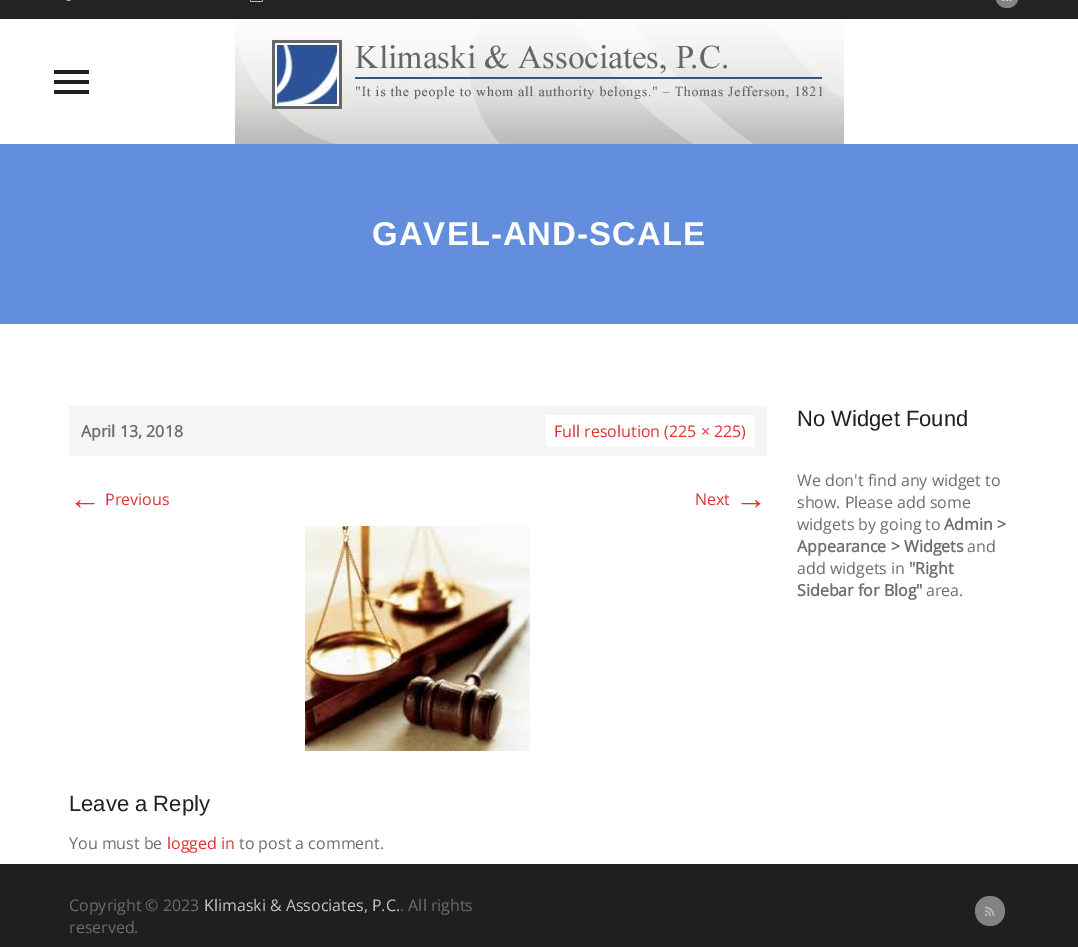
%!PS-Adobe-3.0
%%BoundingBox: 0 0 1078 947
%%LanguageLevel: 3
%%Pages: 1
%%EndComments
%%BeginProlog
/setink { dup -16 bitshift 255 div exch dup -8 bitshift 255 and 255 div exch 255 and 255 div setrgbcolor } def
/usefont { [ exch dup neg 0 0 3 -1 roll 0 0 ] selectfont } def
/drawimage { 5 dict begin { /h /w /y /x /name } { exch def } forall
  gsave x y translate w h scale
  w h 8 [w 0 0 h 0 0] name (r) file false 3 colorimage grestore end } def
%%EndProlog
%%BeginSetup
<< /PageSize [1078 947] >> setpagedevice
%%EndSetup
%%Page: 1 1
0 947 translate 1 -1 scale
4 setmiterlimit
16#FFFFFF setink
0 0 1078 947 rectfill
16#232323 setink
0 0 1078 19 rectfill
(img1.raw) 66 0 5 1 drawimage
(img2.raw) 250 0 13 2 drawimage
16#848484 setink
1007 -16 moveto 1022.5 -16 1022.5 8 1007 8 curveto 991.5 8 991.5 -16 1007 -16 curveto closepath fill
(img3.raw) 1002 0 10 1 drawimage
[
    [54 80 35 4 16#202020]
    [54 70 35 4 16#202020]
    [54 90 35 4 16#202020]
] { aload pop setink rectfill } forall
(img4.raw) 235 20 609 124 drawimage
16#638EDD setink
0 144 1078 180 rectfill
/Arimo-Bold 33 usefont
16#FFFFFF setink
372 245 moveto 1 0 (GAVEL-AND-SCALE) ashow
16#F5F5F5 setink
69 406 698 50 rectfill
/OpenSans-Bold 16 usefont
16#6D6D6D setink
81 437 moveto (April 13, 2018) show
16#FFFFFF setink
546 415 209 32 rectfill
/OpenSans-Regular 16 usefont
16#DD3333 setink
554 437 moveto (Full resolution \(225 × 225\)) show
/LiberationSans-Regular 32 usefont
69 509 moveto (←) show
/OpenSans-Regular 16 usefont
105 505 moveto (Previous) show
695 505 moveto (Next) show
/LiberationSans-Regular 32 usefont
735 509 moveto (→) show
(img5.raw) 305 526 225 225 drawimage
/Arimo-Regular 22 usefont
16#202020 setink
69 811 moveto (Leave a Reply) show
/OpenSans-Regular 16 usefont
16#6D6D6D setink
69 849 moveto (You must be) show
16#DD3333 setink
167 849 moveto (logged in) show
16#6D6D6D setink
239 849 moveto (to post a comment.) show
/Arimo-Regular 22 usefont
16#202020 setink
797 426 moveto (No Widget Found) show
/OpenSans-Regular 16 usefont
16#6D6D6D setink
[
    [(We don't find any widget to) 797 486]
    [(show. Please add some) 797 508]
    [(widgets by going to) 797 530]
] { aload pop moveto show } forall
/OpenSans-Bold 16 usefont
944 530 moveto (Admin >) show
797 552 moveto (Appearance > Widgets) show
/OpenSans-Regular 16 usefont
967 552 moveto (and) show
797 574 moveto (add widgets in) show
/OpenSans-Bold 16 usefont
909 574 moveto ("Right) show
797 596 moveto (Sidebar for Blog") show
/OpenSans-Regular 16 usefont
926 596 moveto (area.) show
16#1F1F1F setink
0 864 1078 83 rectfill
16#6D6D6D setink
69 911 moveto (Copyright © 2023) show
16#C7C7C7 setink
204 911 moveto (Klimaski & Associates, P.C.) show
16#6D6D6D setink
400 911 moveto (. All rights) show
69 933 moveto (reserved.) show
16#828282 setink
990 896 moveto 998.5 896 1005 902.5 1005 911 curveto 1005 919.5 998.5 926 990 926 curveto 981.5 926 975 919.5 975 911 curveto 975 902.5 981.5 896 990 896 curveto closepath fill
(img6.raw) 985 906 10 10 drawimage
showpage
%%EOF
